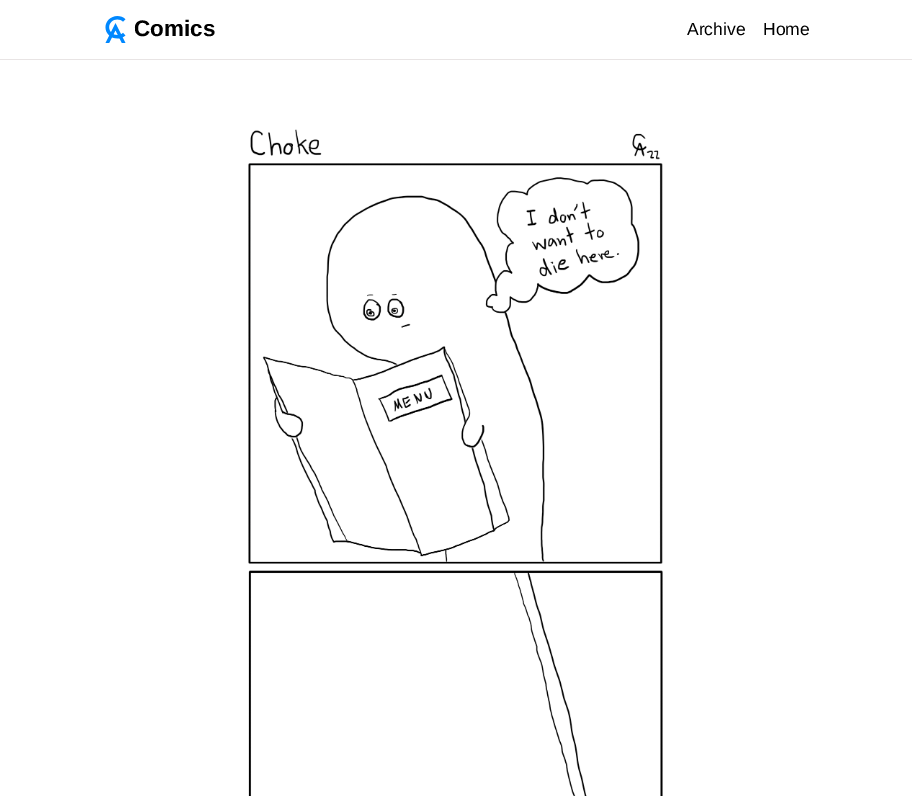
%!PS-Adobe-3.0
%%BoundingBox: 0 0 912 796
%%LanguageLevel: 3
%%Pages: 1
%%EndComments
%%BeginProlog
/setink { dup -16 bitshift 255 div exch dup -8 bitshift 255 and 255 div exch 255 and 255 div setrgbcolor } def
/usefont { [ exch dup neg 0 0 3 -1 roll 0 0 ] selectfont } def
/drawimage { 5 dict begin { /h /w /y /x /name } { exch def } forall
  gsave x y translate w h scale
  w h 8 [w 0 0 h 0 0] name (r) file false 3 colorimage grestore end } def
%%EndProlog
%%BeginSetup
<< /PageSize [912 796] >> setpagedevice
%%EndSetup
%%Page: 1 1
0 796 translate 1 -1 scale
4 setmiterlimit
16#FFFFFF setink
0 0 912 796 rectfill
16#E8E4E4 setink
0 59 912 1 rectfill
(img1.raw) 105 16 21 27 drawimage
/LiberationSans-Bold 22.5 usefont
16#000000 setink
134 36 moveto (Comics) show
/LiberationSans-Regular 17.5 usefont
687 35 moveto (Archive) show
763 35 moveto (Home) show
(img2.raw) 248 129 415 667 drawimage
showpage
%%EOF
